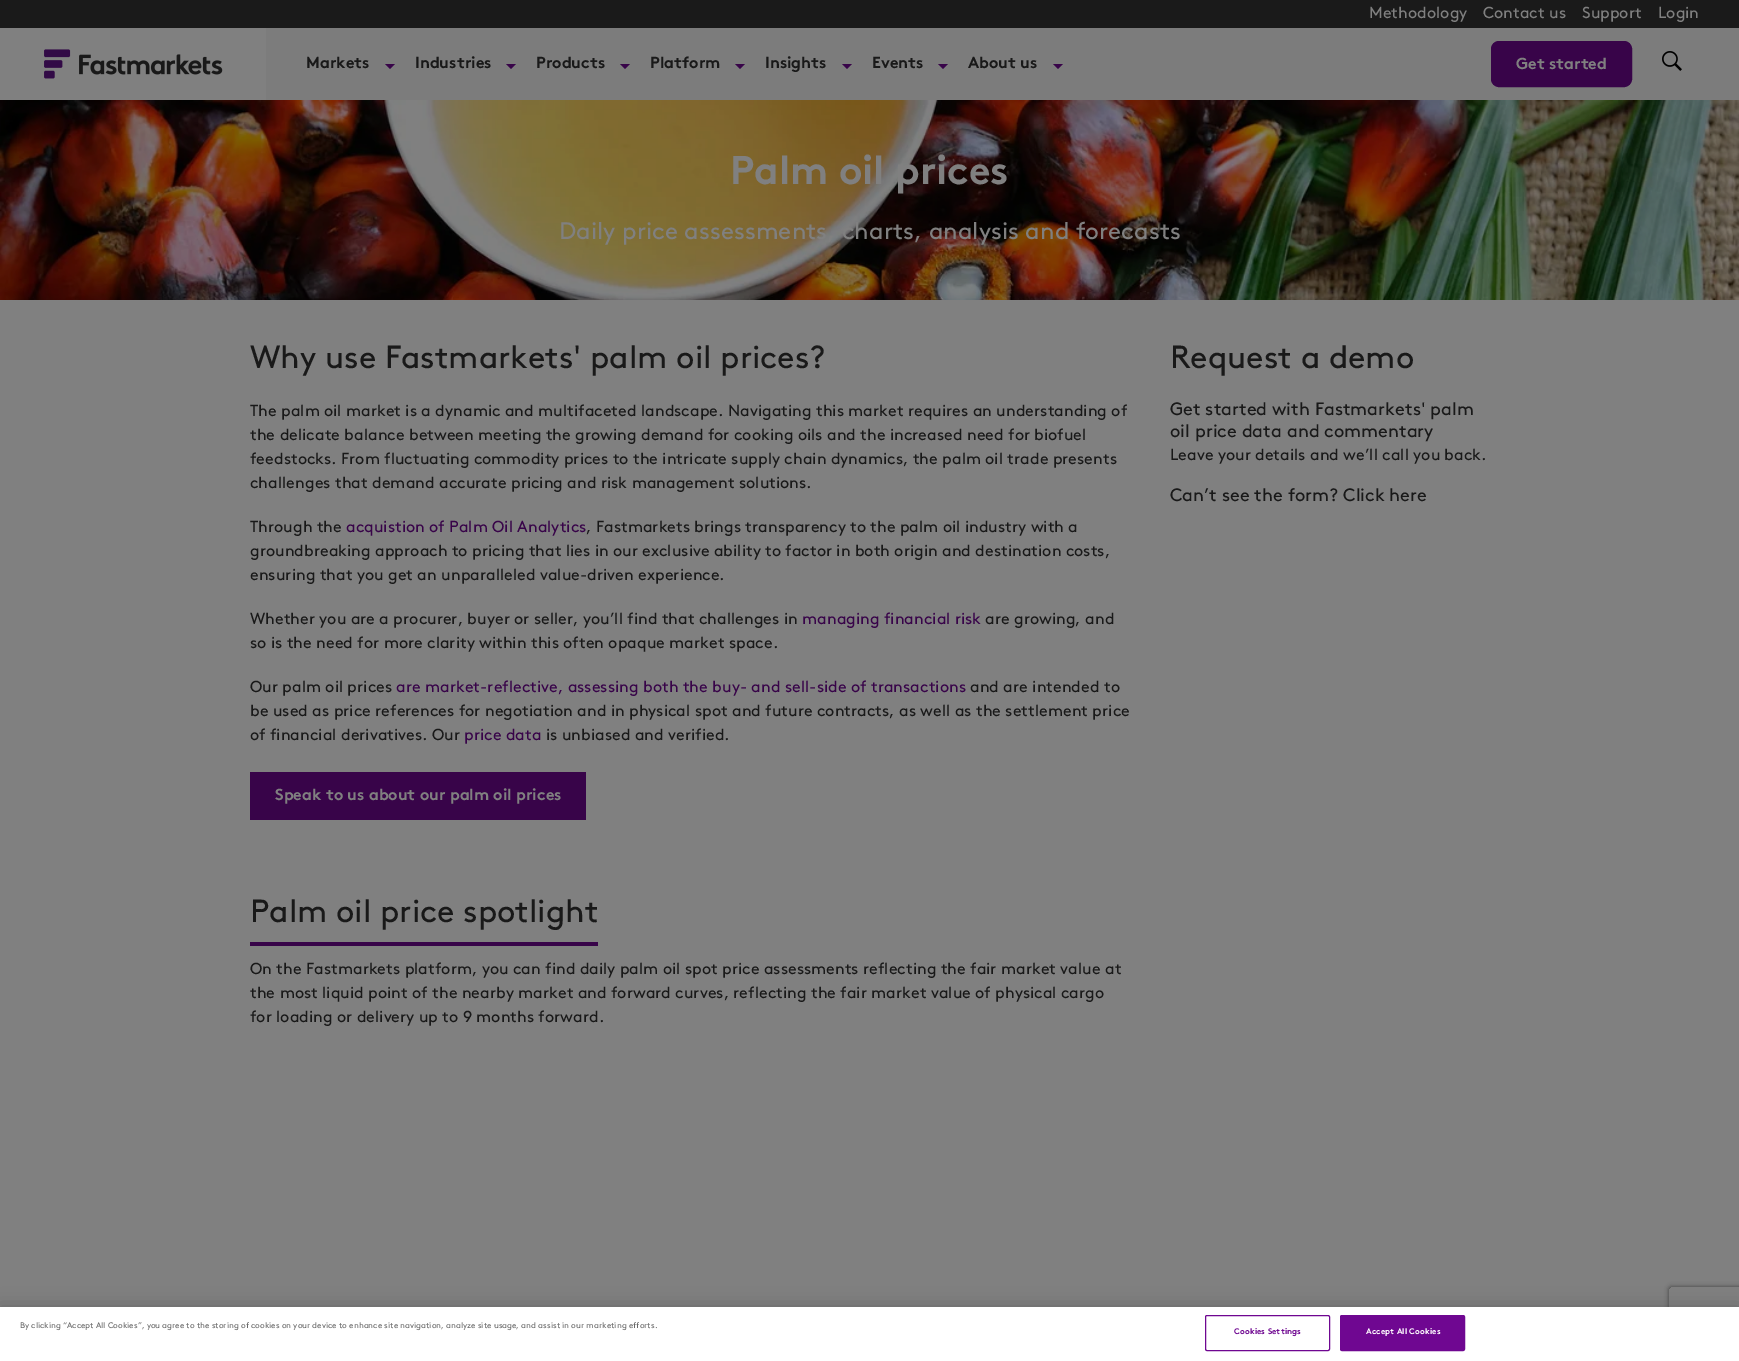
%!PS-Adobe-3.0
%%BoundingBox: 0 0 1739 1361
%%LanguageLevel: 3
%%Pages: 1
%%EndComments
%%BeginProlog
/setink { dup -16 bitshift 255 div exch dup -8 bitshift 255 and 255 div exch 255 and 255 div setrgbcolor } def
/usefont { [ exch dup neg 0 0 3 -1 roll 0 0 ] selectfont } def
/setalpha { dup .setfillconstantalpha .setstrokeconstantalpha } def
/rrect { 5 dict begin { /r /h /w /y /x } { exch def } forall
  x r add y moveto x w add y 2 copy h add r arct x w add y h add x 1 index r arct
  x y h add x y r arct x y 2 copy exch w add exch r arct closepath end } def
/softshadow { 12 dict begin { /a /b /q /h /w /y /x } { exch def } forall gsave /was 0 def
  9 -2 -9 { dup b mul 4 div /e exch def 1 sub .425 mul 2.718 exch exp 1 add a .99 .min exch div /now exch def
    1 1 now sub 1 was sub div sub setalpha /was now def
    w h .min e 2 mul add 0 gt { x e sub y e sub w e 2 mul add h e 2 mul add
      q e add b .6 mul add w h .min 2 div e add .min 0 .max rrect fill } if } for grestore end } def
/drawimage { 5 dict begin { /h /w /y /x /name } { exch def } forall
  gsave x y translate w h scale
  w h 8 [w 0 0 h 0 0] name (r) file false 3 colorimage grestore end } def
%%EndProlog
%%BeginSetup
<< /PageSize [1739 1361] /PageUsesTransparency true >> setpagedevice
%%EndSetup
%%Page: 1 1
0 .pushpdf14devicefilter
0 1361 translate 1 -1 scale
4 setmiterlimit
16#808080 setink
0 0 1739 1361 rectfill
16#1A1A1A setink
0 0 1739 28 rectfill
/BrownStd-Regular 16 usefont
16#808080 setink
[
    [(Methodology) 1369 18]
    [(Contact us) 1483 18]
    [(Support) 1582 18]
    [(Login) 1658 18]
] { aload pop moveto show } forall
16#7C7C7C setink
266 28 1473 72 rectfill
(img1.raw) 44 49 179 30 drawimage
/BrownStd-Bold 16 usefont
16#191919 setink
306 68 moveto (Markets) show
16#380449 setink
385 64 moveto 395 64 lineto 390 69 lineto closepath fill
16#191919 setink
415 68 moveto (Industries) show
16#380449 setink
506 64 moveto 516 64 lineto 511 69 lineto closepath fill
16#191919 setink
536 68 moveto (Products) show
16#380449 setink
620 64 moveto 630 64 lineto 625 69 lineto closepath fill
16#191919 setink
650 68 moveto (Platform) show
16#380449 setink
735 64 moveto 745 64 lineto 740 69 lineto closepath fill
16#191919 setink
765 68 moveto (Insights) show
16#380449 setink
842 64 moveto 852 64 lineto 847 69 lineto closepath fill
16#191919 setink
872 68 moveto (Events) show
16#380449 setink
938 64 moveto 948 64 lineto 943 69 lineto closepath fill
16#191919 setink
968 68 moveto (About us) show
16#380449 setink
1053 64 moveto 1063 64 lineto 1058 69 lineto closepath fill
1491.5 41.5 140 45 7.5 rrect gsave fill grestore
stroke
16#808080 setink
1516 69 moveto (Get started) show
(img2.raw) 1662 51 20 20 drawimage
(img3.raw) 0 100 1739 200 drawimage
/BrownStd-Bold 40 usefont
730 184 moveto (Palm oil prices) show
/BrownStd-Regular 24 usefont
559 239 moveto (Daily price assessments, charts, analysis and forecasts) show
/BrownStd-Regular 32 usefont
16#191919 setink
250 368 moveto (Why use Fastmarkets' palm oil prices?) show
/BrownStd-Regular 16 usefont
[
    [(The palm oil market is a dynamic and multifaceted landscape. Navigating this market requires an understanding of) 250 416]
    [(the delicate balance between meeting the growing demand for cooking oils and the increased need for biofuel) 250 440]
    [(feedstocks. From fluctuating commodity prices to the intricate supply chain dynamics, the palm oil trade presents) 250 464]
    [(challenges that demand accurate pricing and risk management solutions.) 250 488]
    [(Through the) 250 532]
] { aload pop moveto show } forall
16#380449 setink
346 532 moveto (acquistion of Palm Oil Analytics) show
16#191919 setink
[
    [(, Fastmarkets brings transparency to the palm oil industry with a) 586 532]
    [(groundbreaking approach to pricing that lies in our exclusive ability to factor in both origin and destination costs,) 250 556]
    [(ensuring that you get an unparalleled value-driven experience.) 250 580]
    [(Whether you are a procurer, buyer or seller, you’ll find that challenges in) 250 624]
] { aload pop moveto show } forall
16#380449 setink
802 624 moveto (managing financial risk) show
16#191919 setink
[
    [(are growing, and) 985 624]
    [(so is the need for more clarity within this often opaque market space.) 250 648]
    [(Our palm oil prices) 250 692]
] { aload pop moveto show } forall
16#380449 setink
396 692 moveto (are market-reflective, assessing both the buy- and sell-side of transactions) show
16#191919 setink
[
    [(and are intended to) 970 692]
    [(be used as price references for negotiation and in physical spot and future contracts, as well as the settlement price) 250 716]
    [(of financial derivatives. Our) 250 740]
] { aload pop moveto show } forall
16#380449 setink
464 740 moveto (price data) show
16#191919 setink
546 740 moveto (is unbiased and verified.) show
16#380449 setink
250 772 336 48 rectfill
/BrownStd-Bold 16 usefont
16#808080 setink
275 800 moveto (Speak to us about our palm oil prices) show
/BrownStd-Regular 32 usefont
16#191919 setink
250 922 moveto (Palm oil price spotlight) show
16#380449 setink
250 942 348 4 rectfill
/BrownStd-Regular 16 usefont
16#191919 setink
[
    [(On the Fastmarkets platform, you can find daily palm oil spot price assessments reflecting the fair market value at) 250 974]
    [(the most liquid point of the nearby market and forward curves, reflecting the fair market value of physical cargo) 250 998]
    [(for loading or delivery up to 9 months forward.) 250 1022]
] { aload pop moveto show } forall
/BrownStd-Regular 32 usefont
1170 368 moveto (Request a demo) show
/BrownStd-Regular 18 usefont
1170 415 moveto (Get started with Fastmarkets' palm) show
1170 437 moveto (oil price data and commentary) show
/BrownStd-Regular 16 usefont
1170 460 moveto (Leave your details and we’ll call you back.) show
/BrownStd-Regular 18 usefont
1170 501 moveto (Can’t see the form? Click here) show
16#000000 setink
0 1307 1739 54 0 9 0.2 softshadow
gsave
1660 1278 moveto 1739 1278 lineto 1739 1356 lineto 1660 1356 lineto closepath 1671 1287 moveto 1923 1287 lineto 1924 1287 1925 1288 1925 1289 curveto 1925 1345 lineto 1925 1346 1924 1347 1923 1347 curveto 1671 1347 lineto 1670 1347 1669 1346 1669 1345 curveto 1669 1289 lineto 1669 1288 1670 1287 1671 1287 curveto closepath eoclip newpath
16#404040 setink
1669 1287 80 60 2 2.5 1 softshadow
grestore
16#FFFFFF setink
0 1307 1739 54 rectfill
/BrownStd-Regular 8.13 usefont
16#696969 setink
20 1328 moveto (By clicking “Accept All Cookies”, you agree to the storing of cookies on your device to enhance site navigation, analyze site usage, and assist in our marketing efforts.) show
16#6F0791 setink
1205.5 1315.5 124 35 1.5 rrect stroke
/BrownStd-Bold 8.13 usefont
1234 1334 moveto 0.1 0 (Cookies Settings) ashow
1340.5 1315.5 124 35 1.5 rrect gsave fill grestore
stroke
16#FFFFFF setink
1366 1334 moveto 0.1 0 (Accept All Cookies) ashow
.poppdf14devicefilter showpage
%%EOF
